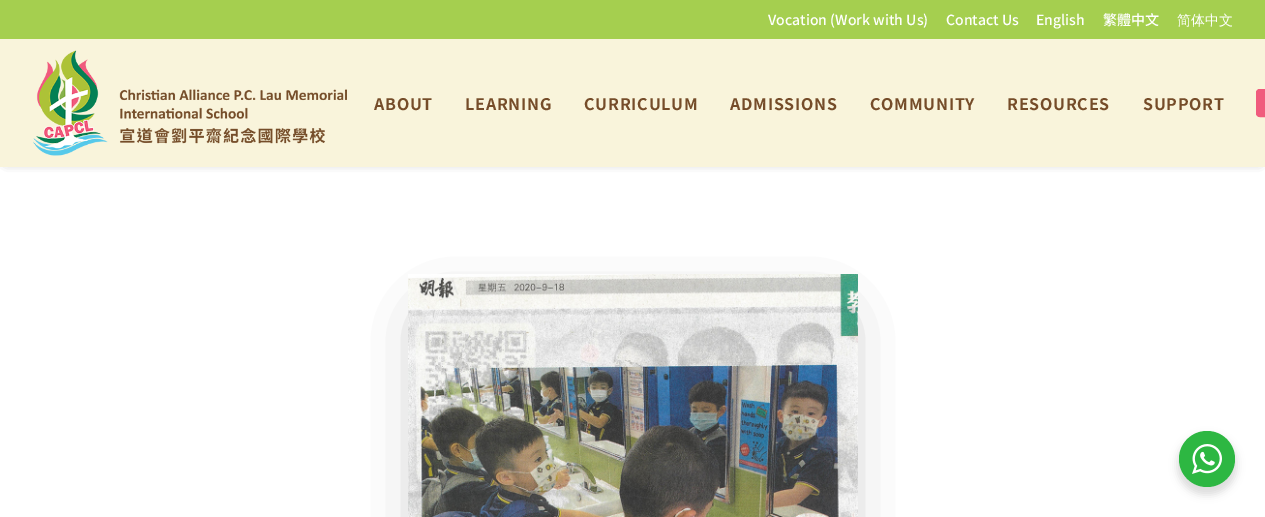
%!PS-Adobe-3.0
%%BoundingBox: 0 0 1265 517
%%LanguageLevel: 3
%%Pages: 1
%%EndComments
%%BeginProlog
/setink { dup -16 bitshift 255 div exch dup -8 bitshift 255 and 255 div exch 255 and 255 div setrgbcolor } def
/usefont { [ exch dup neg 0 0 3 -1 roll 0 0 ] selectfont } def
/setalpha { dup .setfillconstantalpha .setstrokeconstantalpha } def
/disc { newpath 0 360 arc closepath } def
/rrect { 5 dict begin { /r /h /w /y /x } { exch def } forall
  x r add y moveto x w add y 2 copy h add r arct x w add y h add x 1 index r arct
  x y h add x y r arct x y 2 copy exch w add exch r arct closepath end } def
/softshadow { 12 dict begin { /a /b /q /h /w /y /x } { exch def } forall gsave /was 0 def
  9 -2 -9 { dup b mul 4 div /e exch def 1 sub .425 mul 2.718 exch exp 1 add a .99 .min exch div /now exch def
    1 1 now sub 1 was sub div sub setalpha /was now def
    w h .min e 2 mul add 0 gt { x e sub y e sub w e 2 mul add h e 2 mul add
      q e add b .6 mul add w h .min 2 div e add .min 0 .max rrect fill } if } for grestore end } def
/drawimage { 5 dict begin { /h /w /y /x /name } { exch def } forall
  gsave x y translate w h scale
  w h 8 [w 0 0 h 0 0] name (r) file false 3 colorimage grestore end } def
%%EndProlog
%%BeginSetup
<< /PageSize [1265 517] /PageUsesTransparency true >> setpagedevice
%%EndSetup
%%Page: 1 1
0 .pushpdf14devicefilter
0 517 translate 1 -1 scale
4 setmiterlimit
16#FFFFFF setink
0 0 1265 517 rectfill
16#000000 setink
7 53 1252 108 0 5 0.6 softshadow
16#A5CF4F setink
0 0 1265 39 rectfill
/NotoSansTC-Medium 14 usefont
16#FFFFFF setink
[
    [(Vocation \(Work with Us\)) 768 25]
    [(Contact Us) 946 25]
    [(English) 1036 25]
    [(繁體中文) 1103 25]
] { aload pop moveto show } forall
/WenQuanYiZenHei-Medium 14 usefont
1177 25 moveto (简体中文) show
16#F9F4DB setink
0 39 1265 128 rectfill
(img1.raw) 33 50 314 106 drawimage
/NotoSansTC-Bold 16 usefont
16#754C29 setink
374 110 moveto 0.75 0 (ABOUT) ashow
465 110 moveto 0.75 0 (LEARNING) ashow
584 110 moveto 0.75 0 (CURRICULUM) ashow
730 110 moveto 0.75 0 (ADMISSIONS) ashow
870 110 moveto 0.75 0 (COMMUNITY) ashow
1007 110 moveto 0.75 0 (RESOURCES) ashow
1143 110 moveto 0.75 0 (SUPPORT) ashow
16#F05B7D setink
1260 89 moveto 1265 89 lineto 1265 117 lineto 1260 117 lineto 1258 117 1256 115 1256 113 curveto 1256 93 lineto 1256 91 1258 89 1260 89 curveto closepath fill
1256.5 89.5 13 27 3.5 rrect stroke
16#000000 setink
438 324 390 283 0 30 0.45 softshadow
(img2.raw) 408 274 450 243 drawimage
1177 435 60 60 30 4 0.14 softshadow
16#2DB742 setink
1207 459 28 disc fill
(img3.raw) 1192 444 30 30 drawimage
.poppdf14devicefilter showpage
%%EOF
